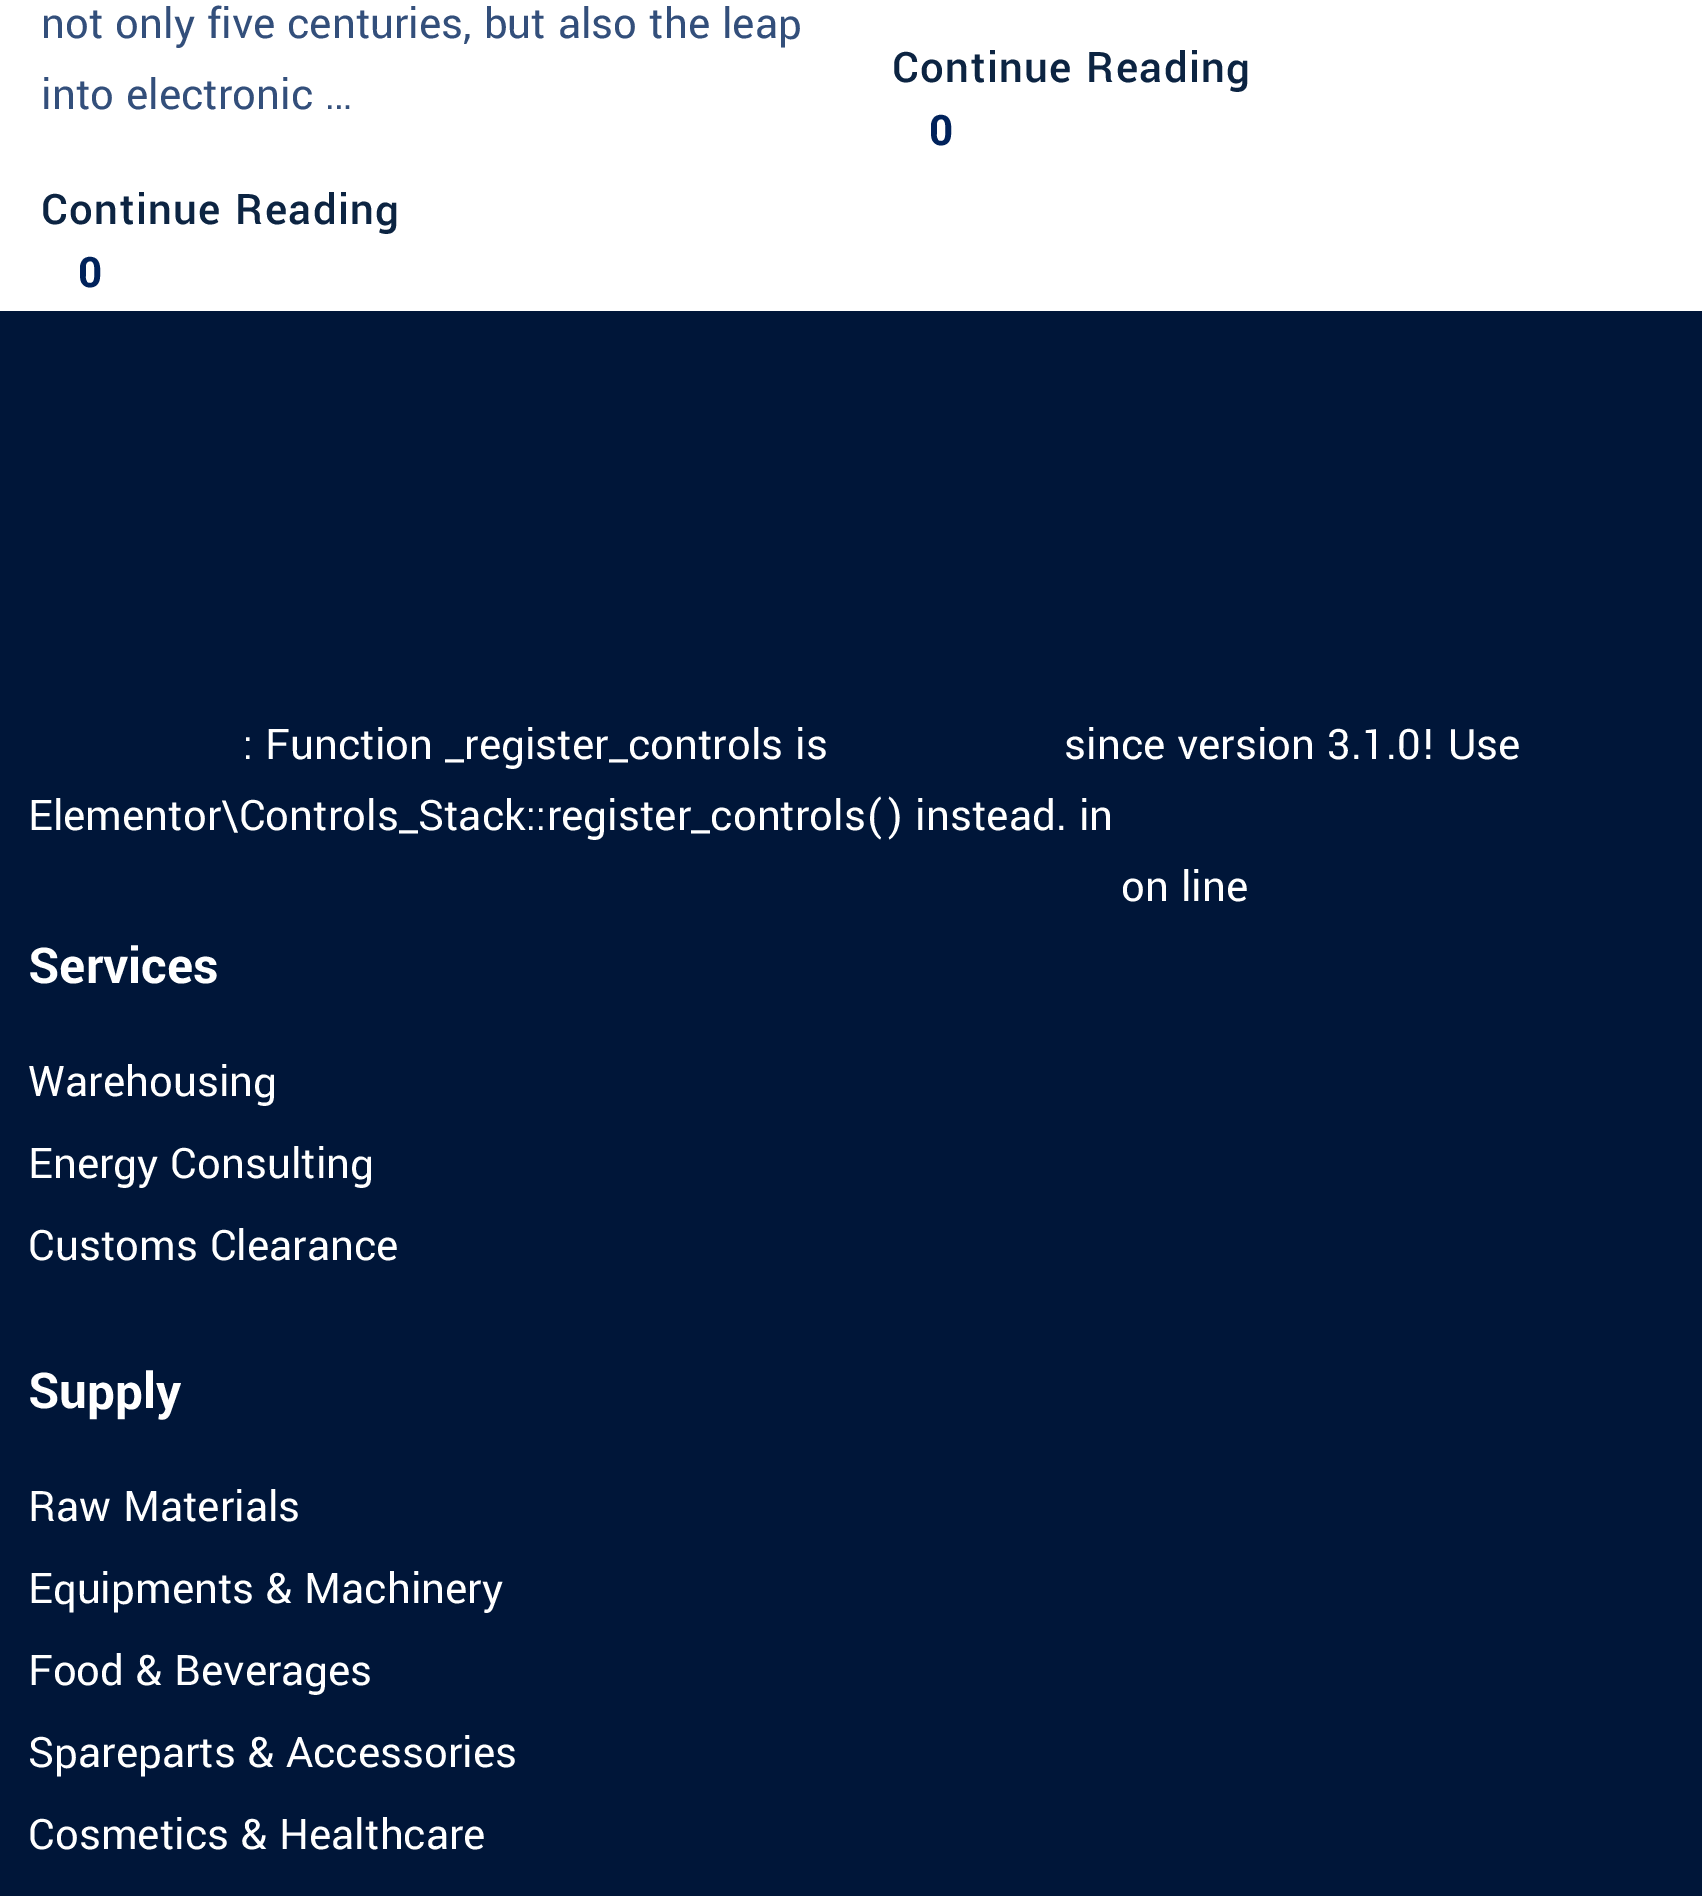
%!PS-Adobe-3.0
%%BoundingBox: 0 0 1702 1896
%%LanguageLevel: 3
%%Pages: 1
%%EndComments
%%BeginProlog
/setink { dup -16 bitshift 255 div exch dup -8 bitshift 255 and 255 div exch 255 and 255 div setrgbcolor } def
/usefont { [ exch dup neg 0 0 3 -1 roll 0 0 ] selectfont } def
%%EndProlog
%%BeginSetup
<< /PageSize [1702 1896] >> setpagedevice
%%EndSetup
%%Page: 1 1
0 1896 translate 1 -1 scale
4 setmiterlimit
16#FFFFFF setink
0 0 1702 1896 rectfill
/Yantramanav-Regular 46.75 usefont
16#334F7B setink
41 38 moveto (not only five centuries, but also the leap) show
41 109 moveto (into electronic …) show
/Yantramanav-Medium 46.75 usefont
16#0C2442 setink
41 224 moveto 1.4 0 (Continue Reading) ashow
/Yantramanav-Bold 46.75 usefont
16#00225B setink
78 287 moveto (0) show
/Yantramanav-Medium 46.75 usefont
16#0C2442 setink
892 82 moveto 1.4 0 (Continue Reading) ashow
/Yantramanav-Bold 46.75 usefont
16#00225B setink
929 145 moveto (0) show
16#001639 setink
0 311 1702 1585 rectfill
/Yantramanav-Regular 46.75 usefont
16#FFFFFF setink
[
    [(: Function _register_controls is) 243 759]
    [(since version 3.1.0! Use) 1064 759]
    [(Elementor\\Controls_Stack::register_controls\(\) instead. in) 28 830]
    [(on line) 1121 901]
] { aload pop moveto show } forall
/Yantramanav-Bold 55 usefont
28 983 moveto (Services) show
/Yantramanav-Regular 46.75 usefont
[
    [(Warehousing) 28 1096]
    [(Energy Consulting) 28 1178]
    [(Customs Clearance) 28 1260]
] { aload pop moveto show } forall
/Yantramanav-Bold 55 usefont
28 1408 moveto (Supply) show
/Yantramanav-Regular 46.75 usefont
[
    [(Raw Materials) 28 1521]
    [(Equipments & Machinery) 28 1603]
    [(Food & Beverages) 28 1685]
    [(Spareparts & Accessories) 28 1767]
    [(Cosmetics & Healthcare) 28 1849]
] { aload pop moveto show } forall
showpage
%%EOF
